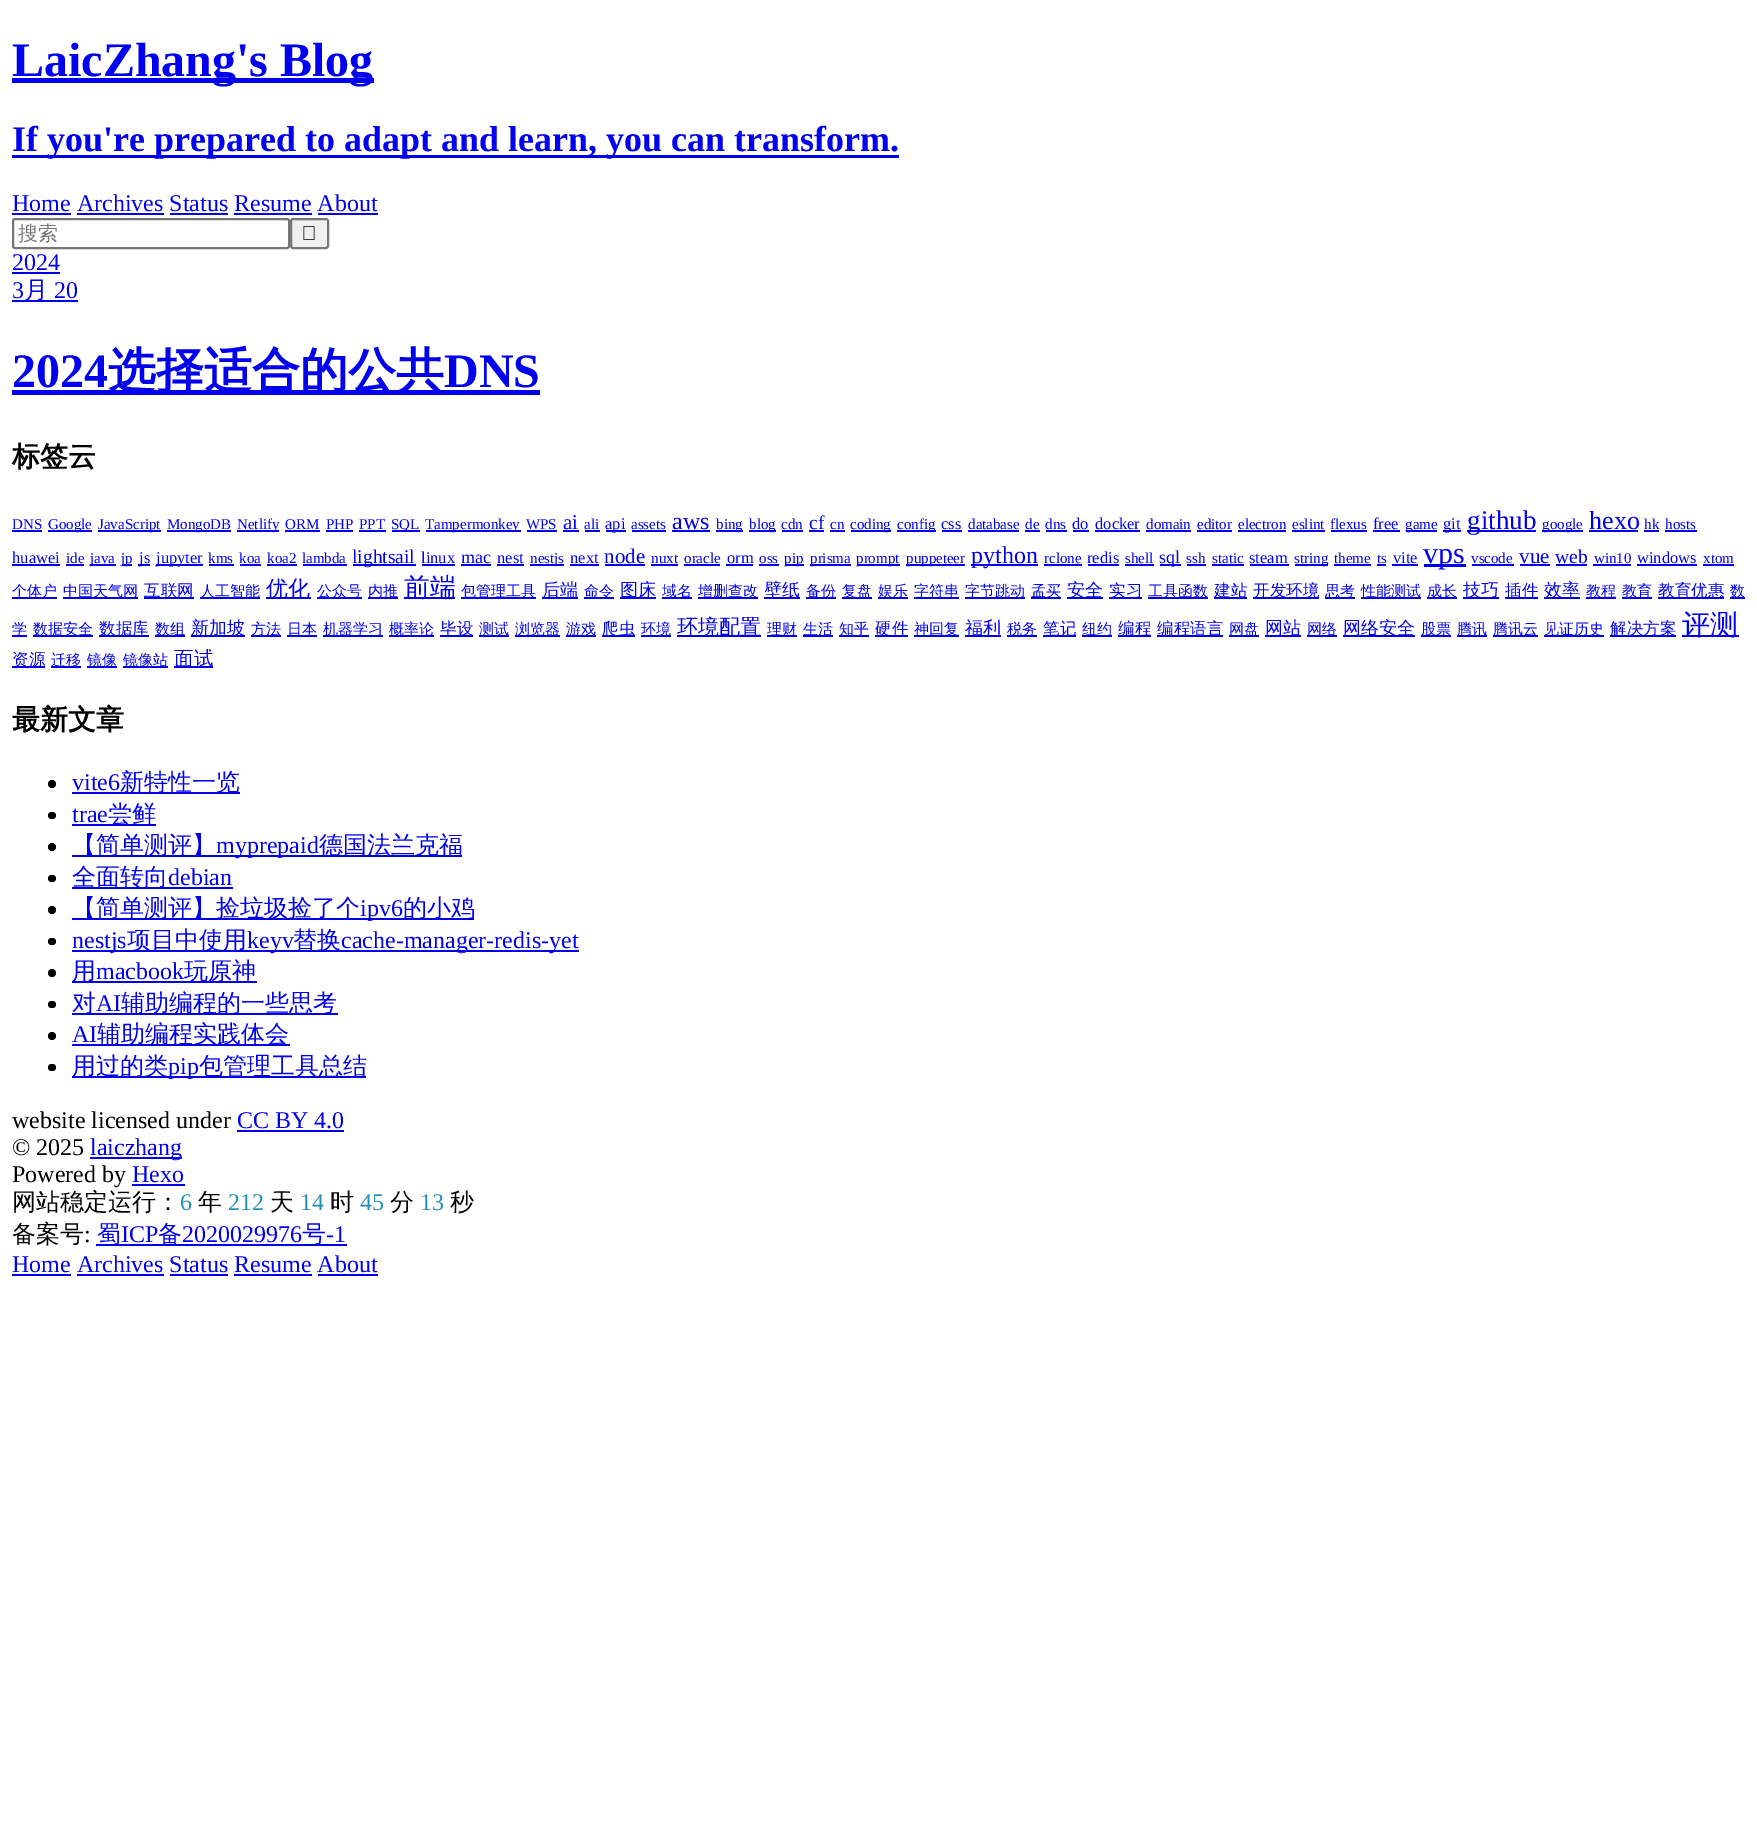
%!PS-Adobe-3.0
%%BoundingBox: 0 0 1757 1842
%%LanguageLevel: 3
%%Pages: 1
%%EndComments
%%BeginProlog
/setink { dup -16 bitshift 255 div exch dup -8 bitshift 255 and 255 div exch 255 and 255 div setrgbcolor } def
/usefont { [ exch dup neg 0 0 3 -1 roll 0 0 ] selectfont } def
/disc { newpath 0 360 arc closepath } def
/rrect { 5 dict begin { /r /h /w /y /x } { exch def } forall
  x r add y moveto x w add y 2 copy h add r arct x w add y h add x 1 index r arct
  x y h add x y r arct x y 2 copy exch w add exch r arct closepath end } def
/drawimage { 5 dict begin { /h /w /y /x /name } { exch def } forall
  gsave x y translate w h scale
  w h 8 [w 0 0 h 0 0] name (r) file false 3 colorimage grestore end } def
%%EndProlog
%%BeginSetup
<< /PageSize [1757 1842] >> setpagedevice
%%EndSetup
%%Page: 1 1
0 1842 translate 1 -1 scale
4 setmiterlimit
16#FFFFFF setink
0 0 1757 1842 rectfill
16#0000EE setink
12 78 362 5 rectfill
/LiberationSerif-Bold 48 usefont
12 76 moveto (LaicZhang's Blog) show
12 155 887 3 rectfill
/LiberationSerif-Bold 36 usefont
12 151 moveto (If you're prepared to adapt and learn, you can transform.) show
/LiberationSerif-Regular 24 usefont
12 211 moveto (Home Archives Status Resume About) show
[
    [12 213 59 2 16#0000EE]
    [77 213 87 2 16#0000EE]
    [170 213 58 2 16#0000EE]
    [234 213 78 2 16#0000EE]
    [318 213 60 2 16#0000EE]
] { aload pop setink rectfill } forall
16#767676 setink
2 setlinewidth
13 219 276 29 2 rrect stroke
/WenQuanYiZenHei-Medium 20 usefont
16#757575 setink
18 240 moveto (搜索) show
16#EFEFEF setink
291 219 37 29 2 rrect gsave fill grestore
16#767676 setink
stroke
(img1.raw) 303 226 12 14 drawimage
/LiberationSerif-Regular 24 usefont
16#0000EE setink
12 270 moveto (2024) show
12 272 48 2 rectfill
12 298 moveto (3) show
12 300 66 2 rectfill
/WenQuanYiZenHei-Medium 24 usefont
24 298 moveto (月) show
/LiberationSerif-Regular 24 usefont
54 298 moveto (20) show
/LiberationSerif-Bold 48 usefont
12 387 moveto (2024) show
12 390 528 5 rectfill
/WenQuanYiZenHei-Bold 48 usefont
108 387 moveto (选择适合的公共) show
/LiberationSerif-Bold 48 usefont
444 387 moveto (DNS) show
/WenQuanYiZenHei-Bold 28 usefont
16#000000 setink
12 466 moveto (标签云) show
/LiberationSerif-Regular 15 usefont
16#0000EE setink
12 529 moveto (DNS) show
12 530 30 2 rectfill
48 530 44 2 rectfill
48 529 moveto (Google) show
98 530 63 2 rectfill
98 529 moveto (JavaScript) show
167 530 64 2 rectfill
167 529 moveto (MongoDB) show
237 530 42 2 rectfill
237 529 moveto (Netlify) show
285 529 moveto (ORM) show
285 530 35 2 rectfill
326 529 moveto (PHP) show
326 530 27 2 rectfill
359 529 moveto (PPT) show
359 530 27 2 rectfill
392 530 28 2 rectfill
391 529 moveto (SQL) show
426 530 95 2 rectfill
425 529 moveto (Tampermonkey) show
526 529 moveto (WPS) show
527 530 30 2 rectfill
/LiberationSerif-Regular 21 usefont
563 529 moveto (ai) show
563 530 16 2 rectfill
/LiberationSerif-Regular 15 usefont
584 529 moveto (ali) show
585 530 15 2 rectfill
606 530 20 2 rectfill
/LiberationSerif-Regular 16.5 usefont
605 529 moveto (api) show
/LiberationSerif-Regular 15 usefont
631 529 moveto (assets) show
632 530 34 2 rectfill
/LiberationSerif-Regular 24 usefont
672 529 moveto (aws) show
672 530 38 2 rectfill
716 530 27 2 rectfill
/LiberationSerif-Regular 15 usefont
716 529 moveto (bing) show
749 530 27 2 rectfill
749 529 moveto (blog) show
781 529 moveto (cdn) show
782 530 21 2 rectfill
/LiberationSerif-Regular 19.5 usefont
809 529 moveto (cf) show
809 530 15 2 rectfill
/LiberationSerif-Regular 15 usefont
830 529 moveto (cn) show
830 530 15 2 rectfill
851 530 40 2 rectfill
850 529 moveto (coding) show
897 530 39 2 rectfill
897 529 moveto (config) show
/LiberationSerif-Regular 16.5 usefont
941 529 moveto (css) show
942 530 20 2 rectfill
/LiberationSerif-Regular 15 usefont
968 529 moveto (database) show
968 530 51 2 rectfill
1025 529 moveto (de) show
1025 530 15 2 rectfill
1045 529 moveto (dns) show
1046 530 21 2 rectfill
/LiberationSerif-Regular 16.5 usefont
1072 529 moveto (do) show
1073 530 16 2 rectfill
1095 529 moveto (docker) show
1095 530 45 2 rectfill
/LiberationSerif-Regular 15 usefont
1146 529 moveto (domain) show
1146 530 45 2 rectfill
1197 529 moveto (editor) show
1197 530 35 2 rectfill
1238 529 moveto (electron) show
1238 530 48 2 rectfill
1292 529 moveto (eslint) show
1292 530 33 2 rectfill
1330 529 moveto (flexus) show
1331 530 36 2 rectfill
/LiberationSerif-Regular 16.5 usefont
1373 529 moveto (free) show
1373 530 27 2 rectfill
1406 530 31 2 rectfill
/LiberationSerif-Regular 15 usefont
1405 529 moveto (game) show
1443 530 18 2 rectfill
/LiberationSerif-Regular 16.5 usefont
1443 529 moveto (git) show
1467 530 69 2 rectfill
/LiberationSerif-Regular 27 usefont
1467 529 moveto (github) show
1542 530 41 2 rectfill
/LiberationSerif-Regular 15 usefont
1542 529 moveto (google) show
/LiberationSerif-Regular 26 usefont
1589 529 moveto (hexo) show
1589 530 49 2 rectfill
/LiberationSerif-Regular 15 usefont
1644 529 moveto (hk) show
1644 530 15 2 rectfill
1665 529 moveto (hosts) show
1665 530 32 2 rectfill
/LiberationSerif-Regular 16.5 usefont
12 563 moveto (huawei) show
12 564 48 2 rectfill
/LiberationSerif-Regular 15 usefont
66 563 moveto (ide) show
66 564 18 2 rectfill
90 564 26 2 rectfill
90 563 moveto (java) show
122 564 10 2 rectfill
121 563 moveto (jp) show
138 564 12 2 rectfill
/LiberationSerif-Regular 16.5 usefont
139 563 moveto (js) show
156 564 47 2 rectfill
156 563 moveto (jupyter) show
/LiberationSerif-Regular 15 usefont
208 563 moveto (kms) show
209 564 25 2 rectfill
239 563 moveto (koa) show
240 564 21 2 rectfill
267 563 moveto (koa2) show
267 564 30 2 rectfill
302 563 moveto (lambda) show
303 564 44 2 rectfill
353 564 63 2 rectfill
/LiberationSerif-Regular 19.5 usefont
352 563 moveto (lightsail) show
/LiberationSerif-Regular 16.5 usefont
421 563 moveto (linux) show
422 564 33 2 rectfill
/LiberationSerif-Regular 18 usefont
461 563 moveto (mac) show
461 564 30 2 rectfill
/LiberationSerif-Regular 16.5 usefont
497 563 moveto (nest) show
497 564 27 2 rectfill
530 564 34 2 rectfill
/LiberationSerif-Regular 15 usefont
530 563 moveto (nestjs) show
/LiberationSerif-Regular 16.5 usefont
570 563 moveto (next) show
570 564 29 2 rectfill
/LiberationSerif-Regular 21 usefont
604 563 moveto (node) show
605 564 40 2 rectfill
/LiberationSerif-Regular 15 usefont
651 563 moveto (nuxt) show
651 564 27 2 rectfill
684 563 moveto (oracle) show
684 564 36 2 rectfill
/LiberationSerif-Regular 16.5 usefont
727 563 moveto (orm) show
726 564 27 2 rectfill
/LiberationSerif-Regular 15 usefont
759 563 moveto (oss) show
759 564 20 2 rectfill
785 564 19 2 rectfill
784 563 moveto (pip) show
810 564 41 2 rectfill
810 563 moveto (prisma) show
857 564 43 2 rectfill
856 563 moveto (prompt) show
906 564 59 2 rectfill
906 563 moveto (puppeteer) show
971 564 67 2 rectfill
/LiberationSerif-Regular 24 usefont
971 563 moveto (python) show
/LiberationSerif-Regular 15 usefont
1044 563 moveto (rclone) show
1044 564 38 2 rectfill
/LiberationSerif-Regular 16.5 usefont
1087 563 moveto (redis) show
1088 564 31 2 rectfill
/LiberationSerif-Regular 15 usefont
1125 563 moveto (shell) show
1125 564 29 2 rectfill
1160 564 21 2 rectfill
/LiberationSerif-Regular 18 usefont
1159 563 moveto (sql) show
/LiberationSerif-Regular 15 usefont
1186 563 moveto (ssh) show
1187 564 19 2 rectfill
1212 563 moveto (static) show
1212 564 32 2 rectfill
/LiberationSerif-Regular 16.5 usefont
1249 563 moveto (steam) show
1250 564 39 2 rectfill
1295 564 33 2 rectfill
/LiberationSerif-Regular 15 usefont
1294 563 moveto (string) show
1334 563 moveto (theme) show
1334 564 37 2 rectfill
1377 563 moveto (ts) show
1377 564 9 2 rectfill
/LiberationSerif-Regular 16.5 usefont
1393 563 moveto (vite) show
1392 564 26 2 rectfill
1424 564 42 3 rectfill
/LiberationSerif-Regular 30 usefont
1423 563 moveto (vps) show
/LiberationSerif-Regular 15 usefont
1471 563 moveto (vscode) show
1472 564 42 2 rectfill
/LiberationSerif-Regular 21 usefont
1519 563 moveto (vue) show
1520 564 30 2 rectfill
/LiberationSerif-Regular 19.5 usefont
1555 563 moveto (web) show
1556 564 31 2 rectfill
/LiberationSerif-Regular 15 usefont
1594 563 moveto (win10) show
1593 564 38 2 rectfill
/LiberationSerif-Regular 16.5 usefont
1637 563 moveto (windows) show
1637 564 60 2 rectfill
/LiberationSerif-Regular 15 usefont
1703 563 moveto (xtom) show
1703 564 31 2 rectfill
12 597 45 2 rectfill
/WenQuanYiZenHei-Medium 15 usefont
12 596 moveto (个体户) show
63 597 75 2 rectfill
63 596 moveto (中国天气网) show
144 597 50 2 rectfill
/WenQuanYiZenHei-Medium 16.5 usefont
144 596 moveto (互联网) show
200 597 60 2 rectfill
/WenQuanYiZenHei-Medium 15 usefont
200 596 moveto (人工智能) show
266 597 45 2 rectfill
/WenQuanYiZenHei-Medium 22 usefont
266 596 moveto (优化) show
317 597 45 2 rectfill
/WenQuanYiZenHei-Medium 15 usefont
317 596 moveto (公众号) show
368 597 30 2 rectfill
368 596 moveto (内推) show
404 597 51 2 rectfill
/WenQuanYiZenHei-Medium 26 usefont
404 596 moveto (前端) show
461 597 75 2 rectfill
/WenQuanYiZenHei-Medium 15 usefont
461 596 moveto (包管理工具) show
542 597 36 2 rectfill
/WenQuanYiZenHei-Medium 18 usefont
542 596 moveto (后端) show
584 597 30 2 rectfill
/WenQuanYiZenHei-Medium 15 usefont
584 596 moveto (命令) show
620 597 36 2 rectfill
/WenQuanYiZenHei-Medium 18 usefont
620 596 moveto (图床) show
662 597 30 2 rectfill
/WenQuanYiZenHei-Medium 15 usefont
662 596 moveto (域名) show
698 597 60 2 rectfill
698 596 moveto (增删查改) show
764 597 36 2 rectfill
/WenQuanYiZenHei-Medium 18 usefont
764 596 moveto (壁纸) show
806 597 30 2 rectfill
/WenQuanYiZenHei-Medium 15 usefont
806 596 moveto (备份) show
842 597 30 2 rectfill
842 596 moveto (复盘) show
878 597 30 2 rectfill
878 596 moveto (娱乐) show
914 597 45 2 rectfill
914 596 moveto (字符串) show
965 597 60 2 rectfill
965 596 moveto (字节跳动) show
1031 597 30 2 rectfill
1031 596 moveto (孟买) show
1067 597 36 2 rectfill
/WenQuanYiZenHei-Medium 18 usefont
1067 596 moveto (安全) show
1109 597 33 2 rectfill
/WenQuanYiZenHei-Medium 16.5 usefont
1109 596 moveto (实习) show
1148 597 60 2 rectfill
/WenQuanYiZenHei-Medium 15 usefont
1148 596 moveto (工具函数) show
1214 597 33 2 rectfill
/WenQuanYiZenHei-Medium 16.5 usefont
1214 596 moveto (建站) show
1253 597 66 2 rectfill
1253 596 moveto (开发环境) show
1325 597 30 2 rectfill
/WenQuanYiZenHei-Medium 15 usefont
1325 596 moveto (思考) show
1361 597 60 2 rectfill
1361 596 moveto (性能测试) show
1427 597 30 2 rectfill
1427 596 moveto (成长) show
1463 597 36 2 rectfill
/WenQuanYiZenHei-Medium 18 usefont
1463 596 moveto (技巧) show
1505 597 33 2 rectfill
/WenQuanYiZenHei-Medium 16.5 usefont
1505 596 moveto (插件) show
1544 597 36 2 rectfill
/WenQuanYiZenHei-Medium 18 usefont
1544 596 moveto (效率) show
1586 597 30 2 rectfill
/WenQuanYiZenHei-Medium 15 usefont
1586 596 moveto (教程) show
1622 597 30 2 rectfill
1622 596 moveto (教育) show
1658 597 66 2 rectfill
/WenQuanYiZenHei-Medium 16.5 usefont
1658 596 moveto (教育优惠) show
1730 597 15 2 rectfill
/WenQuanYiZenHei-Medium 15 usefont
1730 596 moveto (数) show
12 635 15 2 rectfill
12 634 moveto (学) show
33 635 60 2 rectfill
33 634 moveto (数据安全) show
99 635 50 2 rectfill
/WenQuanYiZenHei-Medium 16.5 usefont
99 634 moveto (数据库) show
155 635 30 2 rectfill
/WenQuanYiZenHei-Medium 15 usefont
155 634 moveto (数组) show
191 635 54 2 rectfill
/WenQuanYiZenHei-Medium 18 usefont
191 634 moveto (新加坡) show
251 635 30 2 rectfill
/WenQuanYiZenHei-Medium 15 usefont
251 634 moveto (方法) show
287 635 30 2 rectfill
287 634 moveto (日本) show
323 635 60 2 rectfill
323 634 moveto (机器学习) show
389 635 45 2 rectfill
389 634 moveto (概率论) show
440 635 33 2 rectfill
/WenQuanYiZenHei-Medium 16.5 usefont
440 634 moveto (毕设) show
479 635 30 2 rectfill
/WenQuanYiZenHei-Medium 15 usefont
479 634 moveto (测试) show
515 635 45 2 rectfill
515 634 moveto (浏览器) show
566 635 30 2 rectfill
566 634 moveto (游戏) show
602 635 33 2 rectfill
/WenQuanYiZenHei-Medium 16.5 usefont
602 634 moveto (爬虫) show
641 635 30 2 rectfill
/WenQuanYiZenHei-Medium 15 usefont
641 634 moveto (环境) show
677 635 84 2 rectfill
/WenQuanYiZenHei-Medium 21 usefont
677 634 moveto (环境配置) show
767 635 30 2 rectfill
/WenQuanYiZenHei-Medium 15 usefont
767 634 moveto (理财) show
803 635 30 2 rectfill
803 634 moveto (生活) show
839 635 30 2 rectfill
839 634 moveto (知乎) show
875 635 33 2 rectfill
/WenQuanYiZenHei-Medium 16.5 usefont
875 634 moveto (硬件) show
914 635 45 2 rectfill
/WenQuanYiZenHei-Medium 15 usefont
914 634 moveto (神回复) show
965 635 36 2 rectfill
/WenQuanYiZenHei-Medium 18 usefont
965 634 moveto (福利) show
1007 635 30 2 rectfill
/WenQuanYiZenHei-Medium 15 usefont
1007 634 moveto (税务) show
1043 635 33 2 rectfill
/WenQuanYiZenHei-Medium 16.5 usefont
1043 634 moveto (笔记) show
1082 635 30 2 rectfill
/WenQuanYiZenHei-Medium 15 usefont
1082 634 moveto (纽约) show
1118 635 33 2 rectfill
/WenQuanYiZenHei-Medium 16.5 usefont
1118 634 moveto (编程) show
1157 635 66 2 rectfill
1157 634 moveto (编程语言) show
1229 635 30 2 rectfill
/WenQuanYiZenHei-Medium 15 usefont
1229 634 moveto (网盘) show
1265 635 36 2 rectfill
/WenQuanYiZenHei-Medium 18 usefont
1265 634 moveto (网站) show
1307 635 30 2 rectfill
/WenQuanYiZenHei-Medium 15 usefont
1307 634 moveto (网络) show
1343 635 72 2 rectfill
/WenQuanYiZenHei-Medium 18 usefont
1343 634 moveto (网络安全) show
1421 635 30 2 rectfill
/WenQuanYiZenHei-Medium 15 usefont
1421 634 moveto (股票) show
1457 635 30 2 rectfill
1457 634 moveto (腾讯) show
1493 635 45 2 rectfill
1493 634 moveto (腾讯云) show
1544 635 60 2 rectfill
1544 634 moveto (见证历史) show
1610 635 66 2 rectfill
/WenQuanYiZenHei-Medium 16.5 usefont
1610 634 moveto (解决方案) show
1682 635 57 2 rectfill
/WenQuanYiZenHei-Medium 28 usefont
1682 634 moveto (评测) show
12 666 33 2 rectfill
/WenQuanYiZenHei-Medium 16.5 usefont
12 665 moveto (资源) show
51 666 30 2 rectfill
/WenQuanYiZenHei-Medium 15 usefont
51 665 moveto (迁移) show
87 666 30 2 rectfill
87 665 moveto (镜像) show
123 666 45 2 rectfill
123 665 moveto (镜像站) show
174 666 39 2 rectfill
/WenQuanYiZenHei-Medium 19.5 usefont
174 665 moveto (面试) show
/WenQuanYiZenHei-Bold 28 usefont
16#000000 setink
12 729 moveto (最新文章) show
52 784 4 disc fill
/LiberationSerif-Regular 24 usefont
16#0000EE setink
72 790 moveto (vite6) show
72 792 168 2 rectfill
/WenQuanYiZenHei-Medium 24 usefont
120 790 moveto (新特性一览) show
16#000000 setink
48 812 8 7 3.5 rrect fill
/LiberationSerif-Regular 24 usefont
16#0000EE setink
72 822 moveto (trae) show
72 824 84 2 rectfill
/WenQuanYiZenHei-Medium 24 usefont
108 822 moveto (尝鲜) show
16#000000 setink
52 847 4 disc fill
16#0000EE setink
72 855 390 2 rectfill
72 853 moveto (【简单测评】) show
/LiberationSerif-Regular 24 usefont
216 853 moveto (myprepaid) show
/WenQuanYiZenHei-Medium 24 usefont
319 853 moveto (德国法兰克福) show
16#000000 setink
48 875 8 7 3.5 rrect fill
16#0000EE setink
72 887 161 2 rectfill
72 885 moveto (全面转向) show
/LiberationSerif-Regular 24 usefont
168 885 moveto (debian) show
16#000000 setink
52 910 4 disc fill
16#0000EE setink
72 918 402 2 rectfill
/WenQuanYiZenHei-Medium 24 usefont
72 916 moveto (【简单测评】捡垃圾捡了个) show
/LiberationSerif-Regular 24 usefont
360 916 moveto (ipv6) show
/WenQuanYiZenHei-Medium 24 usefont
403 916 moveto (的小鸡) show
16#000000 setink
48 938 8 7 3.5 rrect fill
16#0000EE setink
72 950 507 2 rectfill
/LiberationSerif-Regular 24 usefont
72 948 moveto (nestjs) show
/WenQuanYiZenHei-Medium 24 usefont
127 948 moveto (项目中使用) show
/LiberationSerif-Regular 24 usefont
247 948 moveto (keyv) show
/WenQuanYiZenHei-Medium 24 usefont
293 948 moveto (替换) show
/LiberationSerif-Regular 24 usefont
341 948 moveto (cache-manager-redis-yet) show
16#000000 setink
52 973 4 disc fill
16#0000EE setink
72 981 185 2 rectfill
/WenQuanYiZenHei-Medium 24 usefont
72 979 moveto (用) show
/LiberationSerif-Regular 24 usefont
96 979 moveto (macbook) show
/WenQuanYiZenHei-Medium 24 usefont
184 979 moveto (玩原神) show
16#000000 setink
48 1001 8 7 3.5 rrect fill
16#0000EE setink
72 1013 266 2 rectfill
72 1011 moveto (对) show
/LiberationSerif-Regular 24 usefont
96 1011 moveto (AI) show
/WenQuanYiZenHei-Medium 24 usefont
121 1011 moveto (辅助编程的一些思考) show
16#000000 setink
52 1036 4 disc fill
/LiberationSerif-Regular 24 usefont
16#0000EE setink
72 1042 moveto (AI) show
72 1044 218 2 rectfill
/WenQuanYiZenHei-Medium 24 usefont
97 1042 moveto (辅助编程实践体会) show
16#000000 setink
48 1064 8 7 3.5 rrect fill
16#0000EE setink
72 1076 294 2 rectfill
72 1074 moveto (用过的类) show
/LiberationSerif-Regular 24 usefont
168 1074 moveto (pip) show
/WenQuanYiZenHei-Medium 24 usefont
199 1074 moveto (包管理工具总结) show
/LiberationSerif-Regular 24 usefont
16#000000 setink
12 1128 moveto (website licensed under) show
16#0000EE setink
237 1128 moveto (CC BY 4.0) show
237 1130 107 2 rectfill
16#000000 setink
12 1155 moveto (© 2025) show
16#0000EE setink
90 1157 92 2 rectfill
90 1155 moveto (laiczhang) show
16#000000 setink
12 1182 moveto (Powered by) show
16#0000EE setink
132 1182 moveto (Hexo) show
132 1184 53 2 rectfill
/WenQuanYiZenHei-Medium 24 usefont
16#000000 setink
12 1210 moveto (网站稳定运行：) show
/LiberationSerif-Regular 24 usefont
16#258FB8 setink
180 1210 moveto (6) show
/WenQuanYiZenHei-Medium 24 usefont
16#000000 setink
198 1210 moveto (年) show
/LiberationSerif-Regular 24 usefont
16#258FB8 setink
228 1210 moveto (212) show
/WenQuanYiZenHei-Medium 24 usefont
16#000000 setink
270 1210 moveto (天) show
/LiberationSerif-Regular 24 usefont
16#258FB8 setink
300 1210 moveto (14) show
/WenQuanYiZenHei-Medium 24 usefont
16#000000 setink
330 1210 moveto (时) show
/LiberationSerif-Regular 24 usefont
16#258FB8 setink
360 1210 moveto (45) show
/WenQuanYiZenHei-Medium 24 usefont
16#000000 setink
390 1210 moveto (分) show
/LiberationSerif-Regular 24 usefont
16#258FB8 setink
420 1210 moveto (13) show
/WenQuanYiZenHei-Medium 24 usefont
16#000000 setink
450 1210 moveto (秒) show
12 1242 moveto (备案号) show
/LiberationSerif-Regular 24 usefont
84 1242 moveto (:) show
16#0000EE setink
96 1244 251 2 rectfill
/WenQuanYiZenHei-Medium 24 usefont
97 1242 moveto (蜀) show
/LiberationSerif-Regular 24 usefont
121 1242 moveto (ICP) show
/WenQuanYiZenHei-Medium 24 usefont
158 1242 moveto (备) show
/LiberationSerif-Regular 24 usefont
182 1242 moveto (2020029976) show
/WenQuanYiZenHei-Medium 24 usefont
302 1242 moveto (号) show
/LiberationSerif-Regular 24 usefont
326 1242 moveto (-1) show
12 1272 moveto (Home Archives Status Resume About) show
[
    [12 1274 59 2 16#0000EE]
    [77 1274 87 2 16#0000EE]
    [170 1274 58 2 16#0000EE]
    [234 1274 78 2 16#0000EE]
    [318 1274 60 2 16#0000EE]
] { aload pop setink rectfill } forall
showpage
%%EOF
